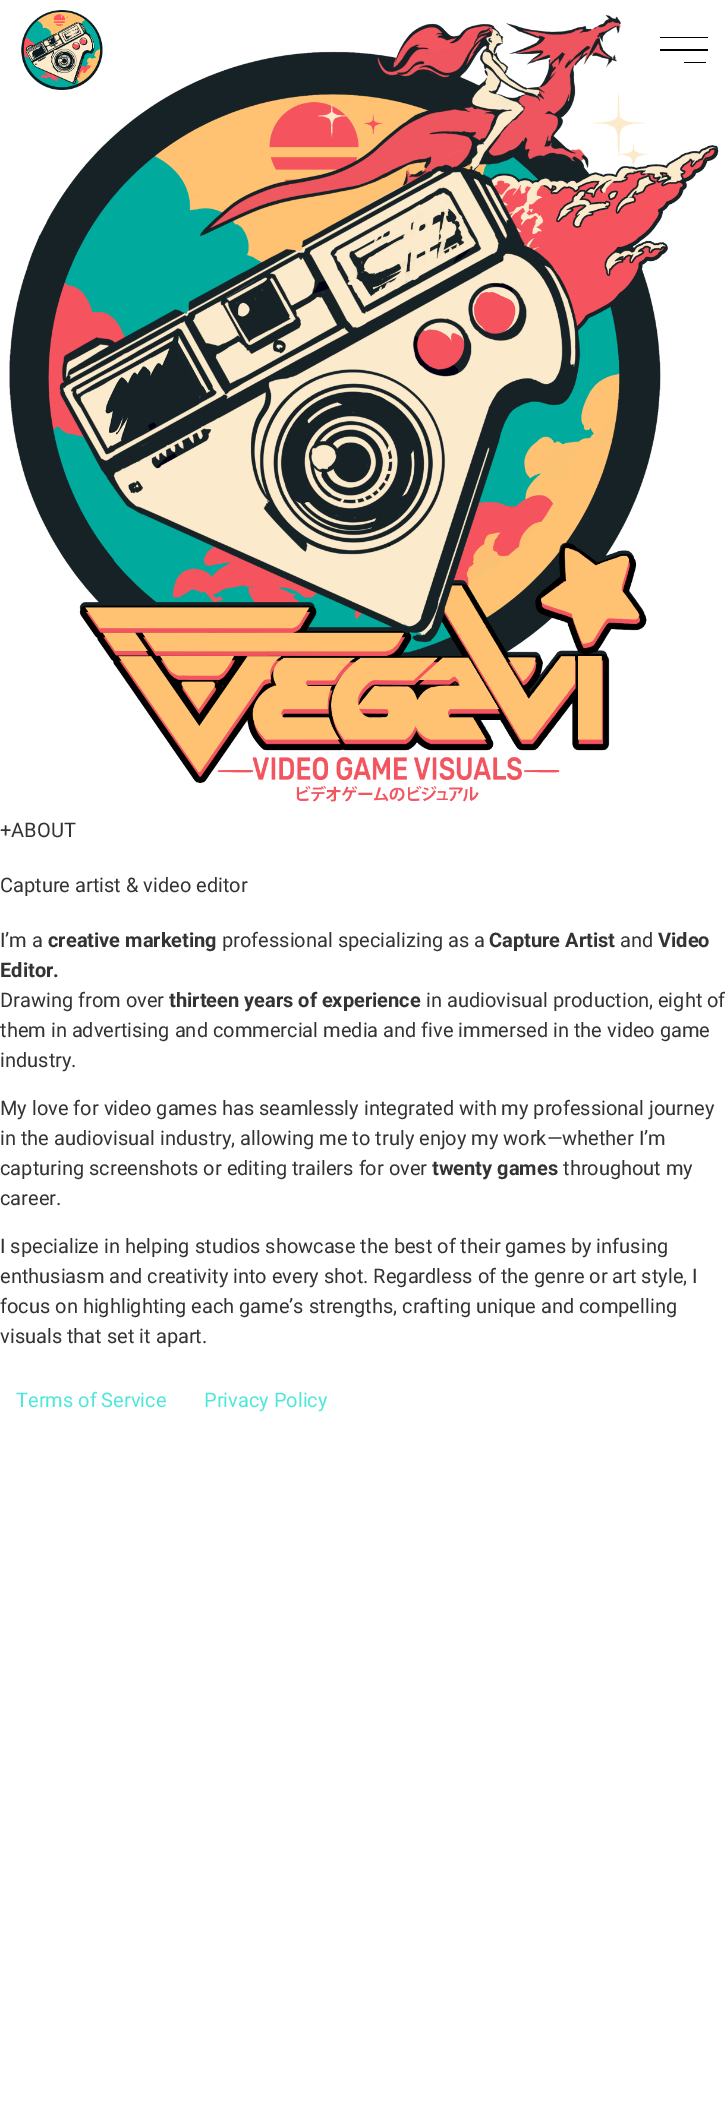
%!PS-Adobe-3.0
%%BoundingBox: 0 0 728 2124
%%LanguageLevel: 3
%%Pages: 1
%%EndComments
%%BeginProlog
/setink { dup -16 bitshift 255 div exch dup -8 bitshift 255 and 255 div exch 255 and 255 div setrgbcolor } def
/usefont { [ exch dup neg 0 0 3 -1 roll 0 0 ] selectfont } def
/drawimage { 5 dict begin { /h /w /y /x /name } { exch def } forall
  gsave x y translate w h scale
  w h 8 [w 0 0 h 0 0] name (r) file false 3 colorimage grestore end } def
%%EndProlog
%%BeginSetup
<< /PageSize [728 2124] >> setpagedevice
%%EndSetup
%%Page: 1 1
0 2124 translate 1 -1 scale
4 setmiterlimit
16#FFFFFF setink
0 0 728 2124 rectfill
(img2.raw) 9 15 710 787 drawimage
(img1.raw) 21 10 82 80 drawimage
[
    [660 37 48 1 16#000000]
    [660 49 48 2 16#000000]
    [684 62 22 1 16#000000]
] { aload pop setink rectfill } forall
/Roboto-Regular 20 usefont
16#333333 setink
[
    [(+ABOUT) 0 837]
    [(Capture artist & video editor) 0 892]
    [(I’m a) 0 947]
] { aload pop moveto show } forall
/Roboto-Bold 20 usefont
48 947 moveto (creative marketing) show
/Roboto-Regular 20 usefont
222 947 moveto (professional specializing as a) show
/Roboto-Bold 20 usefont
489 947 moveto (Capture Artist) show
/Roboto-Regular 20 usefont
620 947 moveto (and) show
/Roboto-Bold 20 usefont
658 947 moveto (Video) show
0 977 moveto (Editor.) show
/Roboto-Regular 20 usefont
0 1007 moveto (Drawing from over) show
/Roboto-Bold 20 usefont
169 1007 moveto (thirteen years of experience) show
/Roboto-Regular 20 usefont
[
    [(in audiovisual production, eight of) 426 1007]
    [(them in advertising and commercial media and five immersed in the video game) 0 1037]
    [(industry.) 0 1067]
    [(My love for video games has seamlessly integrated with my professional journey) 0 1115]
    [(in the audiovisual industry, allowing me to truly enjoy my work—whether I’m) 0 1145]
    [(capturing screenshots or editing trailers for over) 0 1175]
] { aload pop moveto show } forall
/Roboto-Bold 20 usefont
432 1175 moveto (twenty games) show
/Roboto-Regular 20 usefont
[
    [(throughout my) 563 1175]
    [(career.) 0 1205]
    [(I specialize in helping studios showcase the best of their games by infusing) 0 1253]
    [(enthusiasm and creativity into every shot. Regardless of the genre or art style, I) 0 1283]
    [(focus on highlighting each game’s strengths, crafting unique and compelling) 0 1313]
    [(visuals that set it apart.) 0 1343]
] { aload pop moveto show } forall
16#50E7DB setink
16 1407 moveto (Terms of Service) show
204 1407 moveto (Privacy Policy) show
showpage
%%EOF
